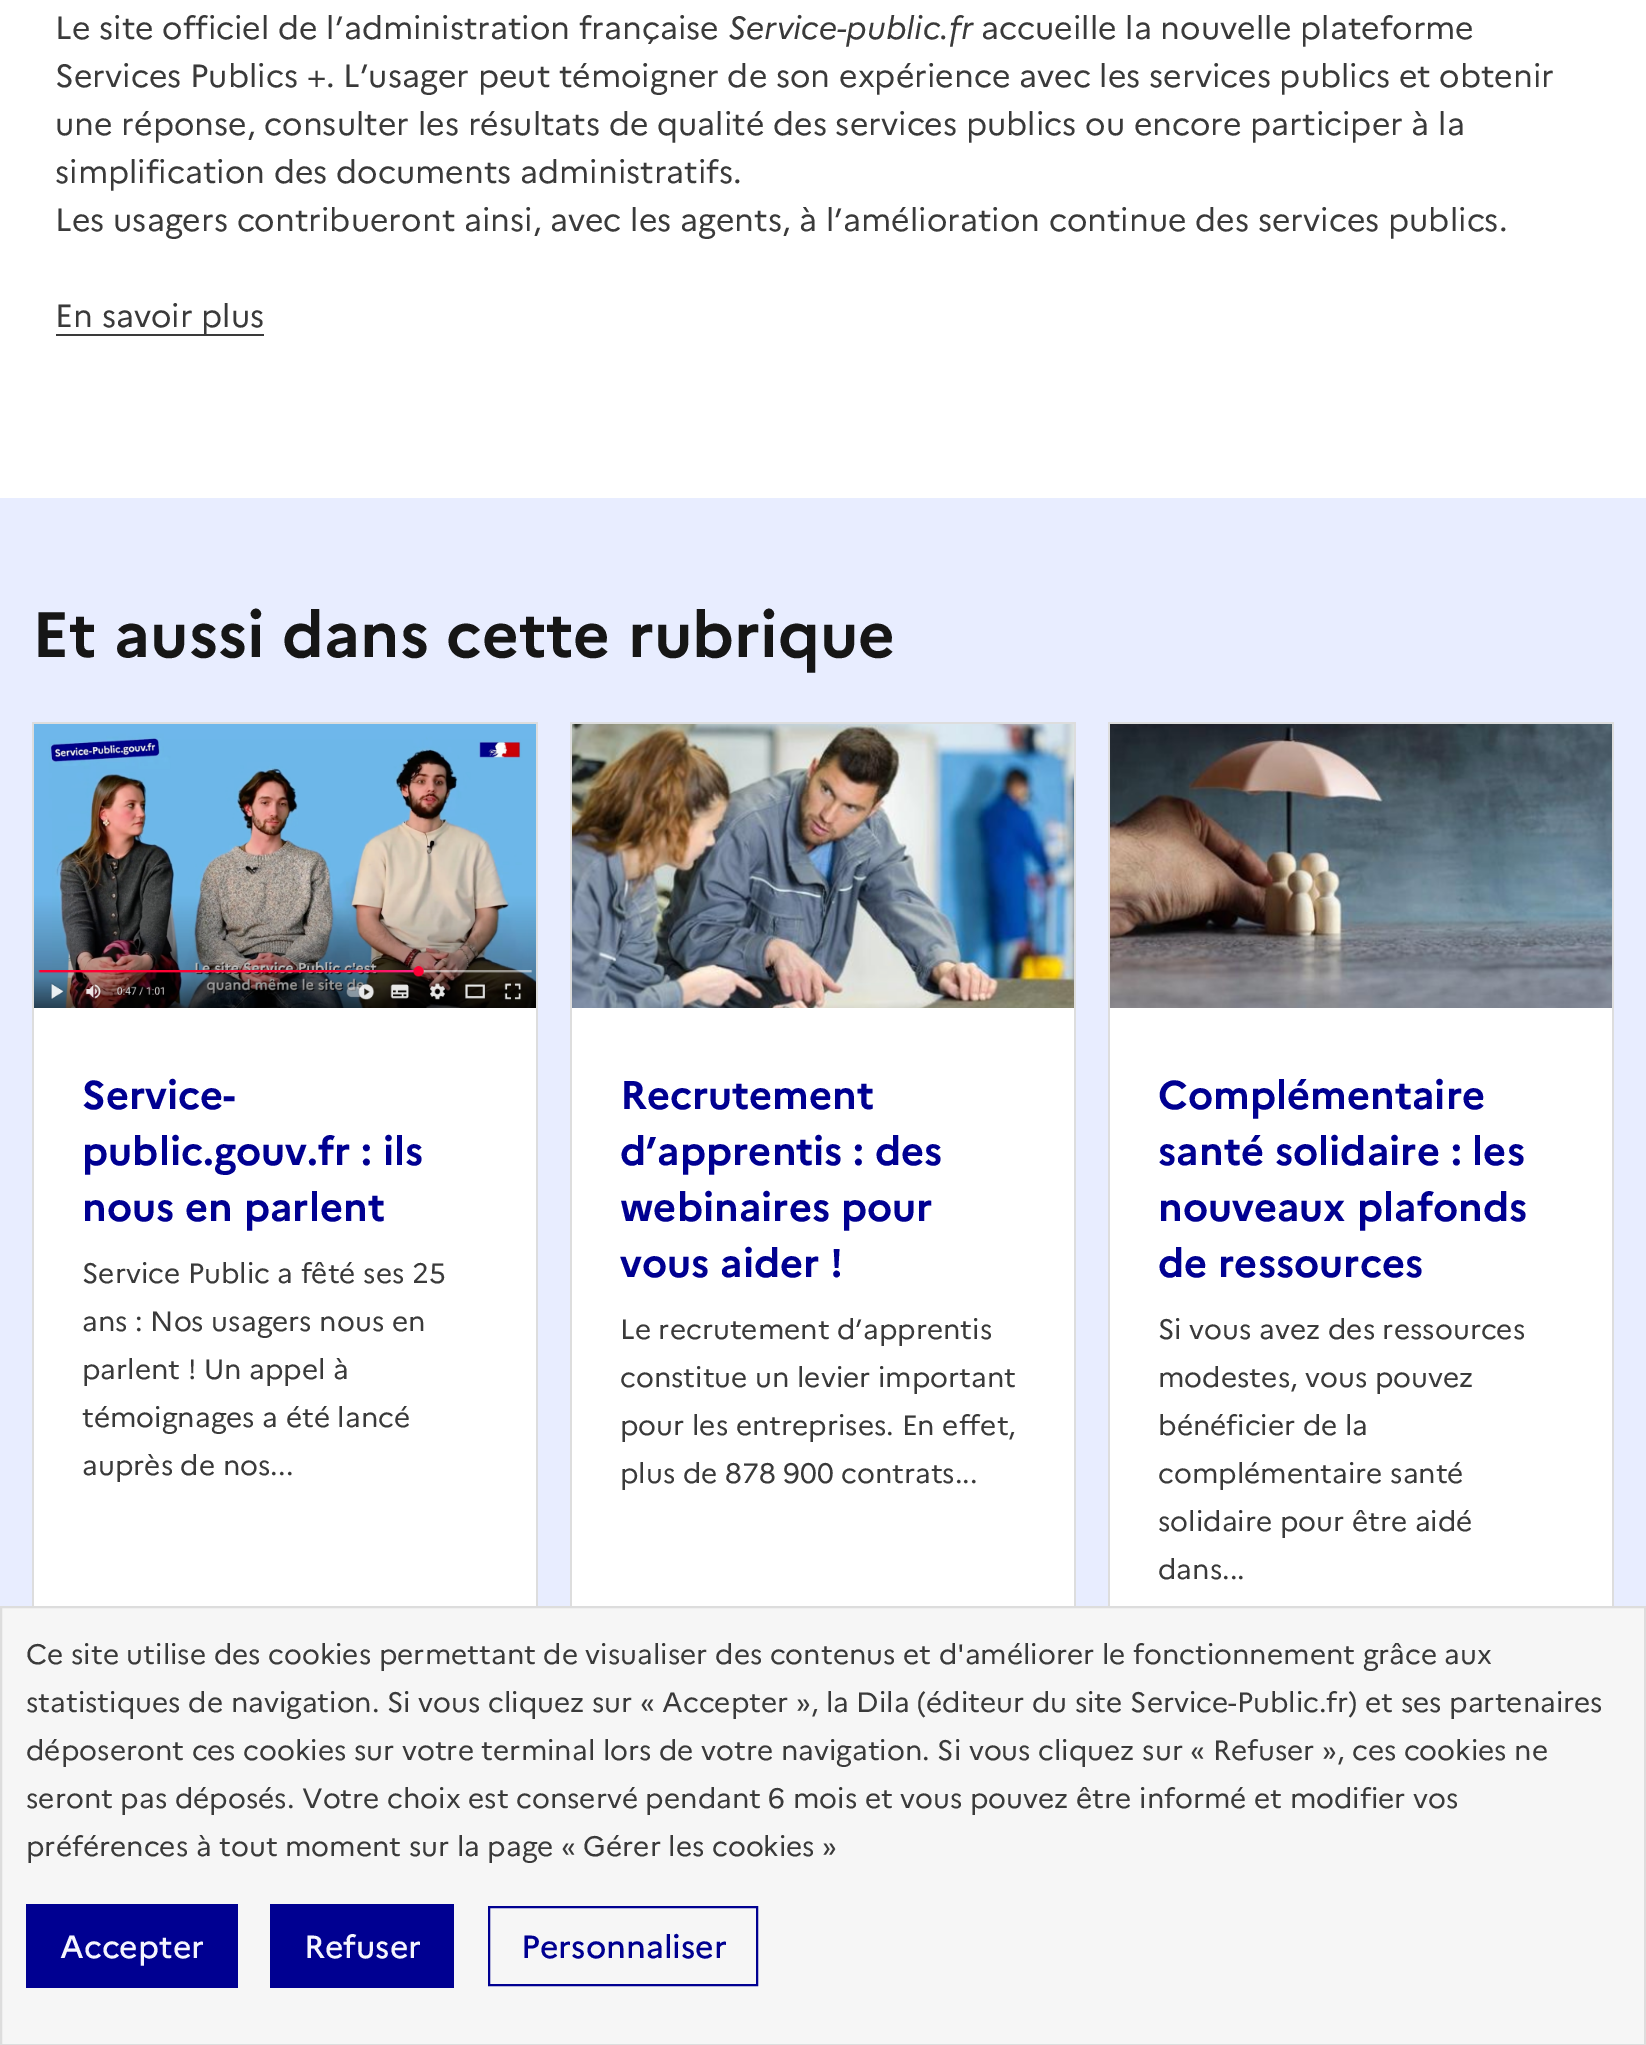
%!PS-Adobe-3.0
%%BoundingBox: 0 0 1646 2045
%%LanguageLevel: 3
%%Pages: 1
%%EndComments
%%BeginProlog
/setink { dup -16 bitshift 255 div exch dup -8 bitshift 255 and 255 div exch 255 and 255 div setrgbcolor } def
/usefont { [ exch dup neg 0 0 3 -1 roll 0 0 ] selectfont } def
/drawimage { 5 dict begin { /h /w /y /x /name } { exch def } forall
  gsave x y translate w h scale
  w h 8 [w 0 0 h 0 0] name (r) file false 3 colorimage grestore end } def
%%EndProlog
%%BeginSetup
<< /PageSize [1646 2045] >> setpagedevice
%%EndSetup
%%Page: 1 1
0 2045 translate 1 -1 scale
4 setmiterlimit
16#FFFFFF setink
0 0 1646 2045 rectfill
/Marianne-Regular 32 usefont
16#3A3A3A setink
55 39 moveto (Le site officiel de l’administration française) show
/Marianne-Italic 32 usefont
728 39 moveto (Service-public.fr) show
/Marianne-Regular 32 usefont
[
    [(accueille la nouvelle plateforme) 981 39]
    [(Services Publics +. L’usager peut témoigner de son expérience avec les services publics et obtenir) 55 87]
    [(une réponse, consulter les résultats de qualité des services publics ou encore participer à la) 55 135]
    [(simplification des documents administratifs.) 55 183]
    [(Les usagers contribueront ainsi, avec les agents, à l’amélioration continue des services publics.) 55 231]
] { aload pop moveto show } forall
56 334 208 2 rectfill
55 327 moveto (En savoir plus) show
16#E8EDFF setink
0 498 1646 1108 rectfill
/Marianne-Bold 64 usefont
16#161616 setink
32 657 moveto (Et aussi dans cette rubrique) show
[
    [34 1008 502 598 16#FFFFFF]
    [32 722 506 2 16#DDDDDD]
    [536 722 2 884 16#DDDDDD]
    [32 722 2 884 16#DDDDDD]
] { aload pop setink rectfill } forall
(img1.raw) 34 724 502 284 drawimage
/Marianne-Bold 40 usefont
16#000091 setink
[
    [(Service-) 82 1109]
    [(public.gouv.fr : ils) 82 1165]
    [(nous en parlent) 82 1221]
] { aload pop moveto show } forall
/Marianne-Regular 28 usefont
16#3A3A3A setink
[
    [(Service Public a fêté ses 25) 82 1283]
    [(ans : Nos usagers nous en) 82 1331]
    [(parlent ! Un appel à) 82 1379]
    [(témoignages a été lancé) 82 1427]
    [(auprès de nos...) 82 1475]
] { aload pop moveto show } forall
[
    [572 1008 502 598 16#FFFFFF]
    [570 722 506 2 16#DDDDDD]
    [1074 722 2 884 16#DDDDDD]
    [570 722 2 884 16#DDDDDD]
] { aload pop setink rectfill } forall
(img2.raw) 572 724 502 284 drawimage
/Marianne-Bold 40 usefont
16#000091 setink
[
    [(Recrutement) 620 1109]
    [(d’apprentis : des) 620 1165]
    [(webinaires pour) 620 1221]
    [(vous aider !) 620 1277]
] { aload pop moveto show } forall
/Marianne-Regular 28 usefont
16#3A3A3A setink
[
    [(Le recrutement d’apprentis) 620 1339]
    [(constitue un levier important) 620 1387]
    [(pour les entreprises. En effet,) 620 1435]
    [(plus de 878 900 contrats...) 620 1483]
] { aload pop moveto show } forall
[
    [1110 1008 502 598 16#FFFFFF]
    [1108 722 506 2 16#DDDDDD]
    [1612 722 2 884 16#DDDDDD]
    [1108 722 2 884 16#DDDDDD]
] { aload pop setink rectfill } forall
(img3.raw) 1110 724 502 284 drawimage
/Marianne-Bold 40 usefont
16#000091 setink
[
    [(Complémentaire) 1158 1109]
    [(santé solidaire : les) 1158 1165]
    [(nouveaux plafonds) 1158 1221]
    [(de ressources) 1158 1277]
] { aload pop moveto show } forall
/Marianne-Regular 28 usefont
16#3A3A3A setink
[
    [(Si vous avez des ressources) 1158 1339]
    [(modestes, vous pouvez) 1158 1387]
    [(bénéficier de la) 1158 1435]
    [(complémentaire santé) 1158 1483]
    [(solidaire pour être aidé) 1158 1531]
    [(dans...) 1158 1579]
] { aload pop moveto show } forall
16#F6F6F6 setink
1 1607 moveto 1645 1607 lineto 1645 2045 lineto 1 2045 lineto closepath gsave fill grestore
16#DDDDDD setink
2 setlinewidth
stroke
16#3A3A3A setink
[
    [(Ce site utilise des cookies permettant de visualiser des contenus et d'améliorer le fonctionnement grâce aux) 26 1664]
    [(statistiques de navigation. Si vous cliquez sur « Accepter », la Dila \(éditeur du site Service-Public.fr\) et ses partenaires) 26 1712]
    [(déposeront ces cookies sur votre terminal lors de votre navigation. Si vous cliquez sur « Refuser », ces cookies ne) 26 1760]
    [(seront pas déposés. Votre choix est conservé pendant 6 mois et vous pouvez être informé et modifier vos) 26 1808]
    [(préférences à tout moment sur la page « Gérer les cookies ») 26 1856]
] { aload pop moveto show } forall
16#000091 setink
26 1904 212 84 rectfill
/Marianne-Medium 32 usefont
16#F5F5FE setink
60 1958 moveto (Accepter) show
16#000091 setink
270 1904 184 84 rectfill
16#F5F5FE setink
304 1958 moveto (Refuser) show
16#000091 setink
489 1907 268 78 rectstroke
521 1958 moveto (Personnaliser) show
showpage
%%EOF
